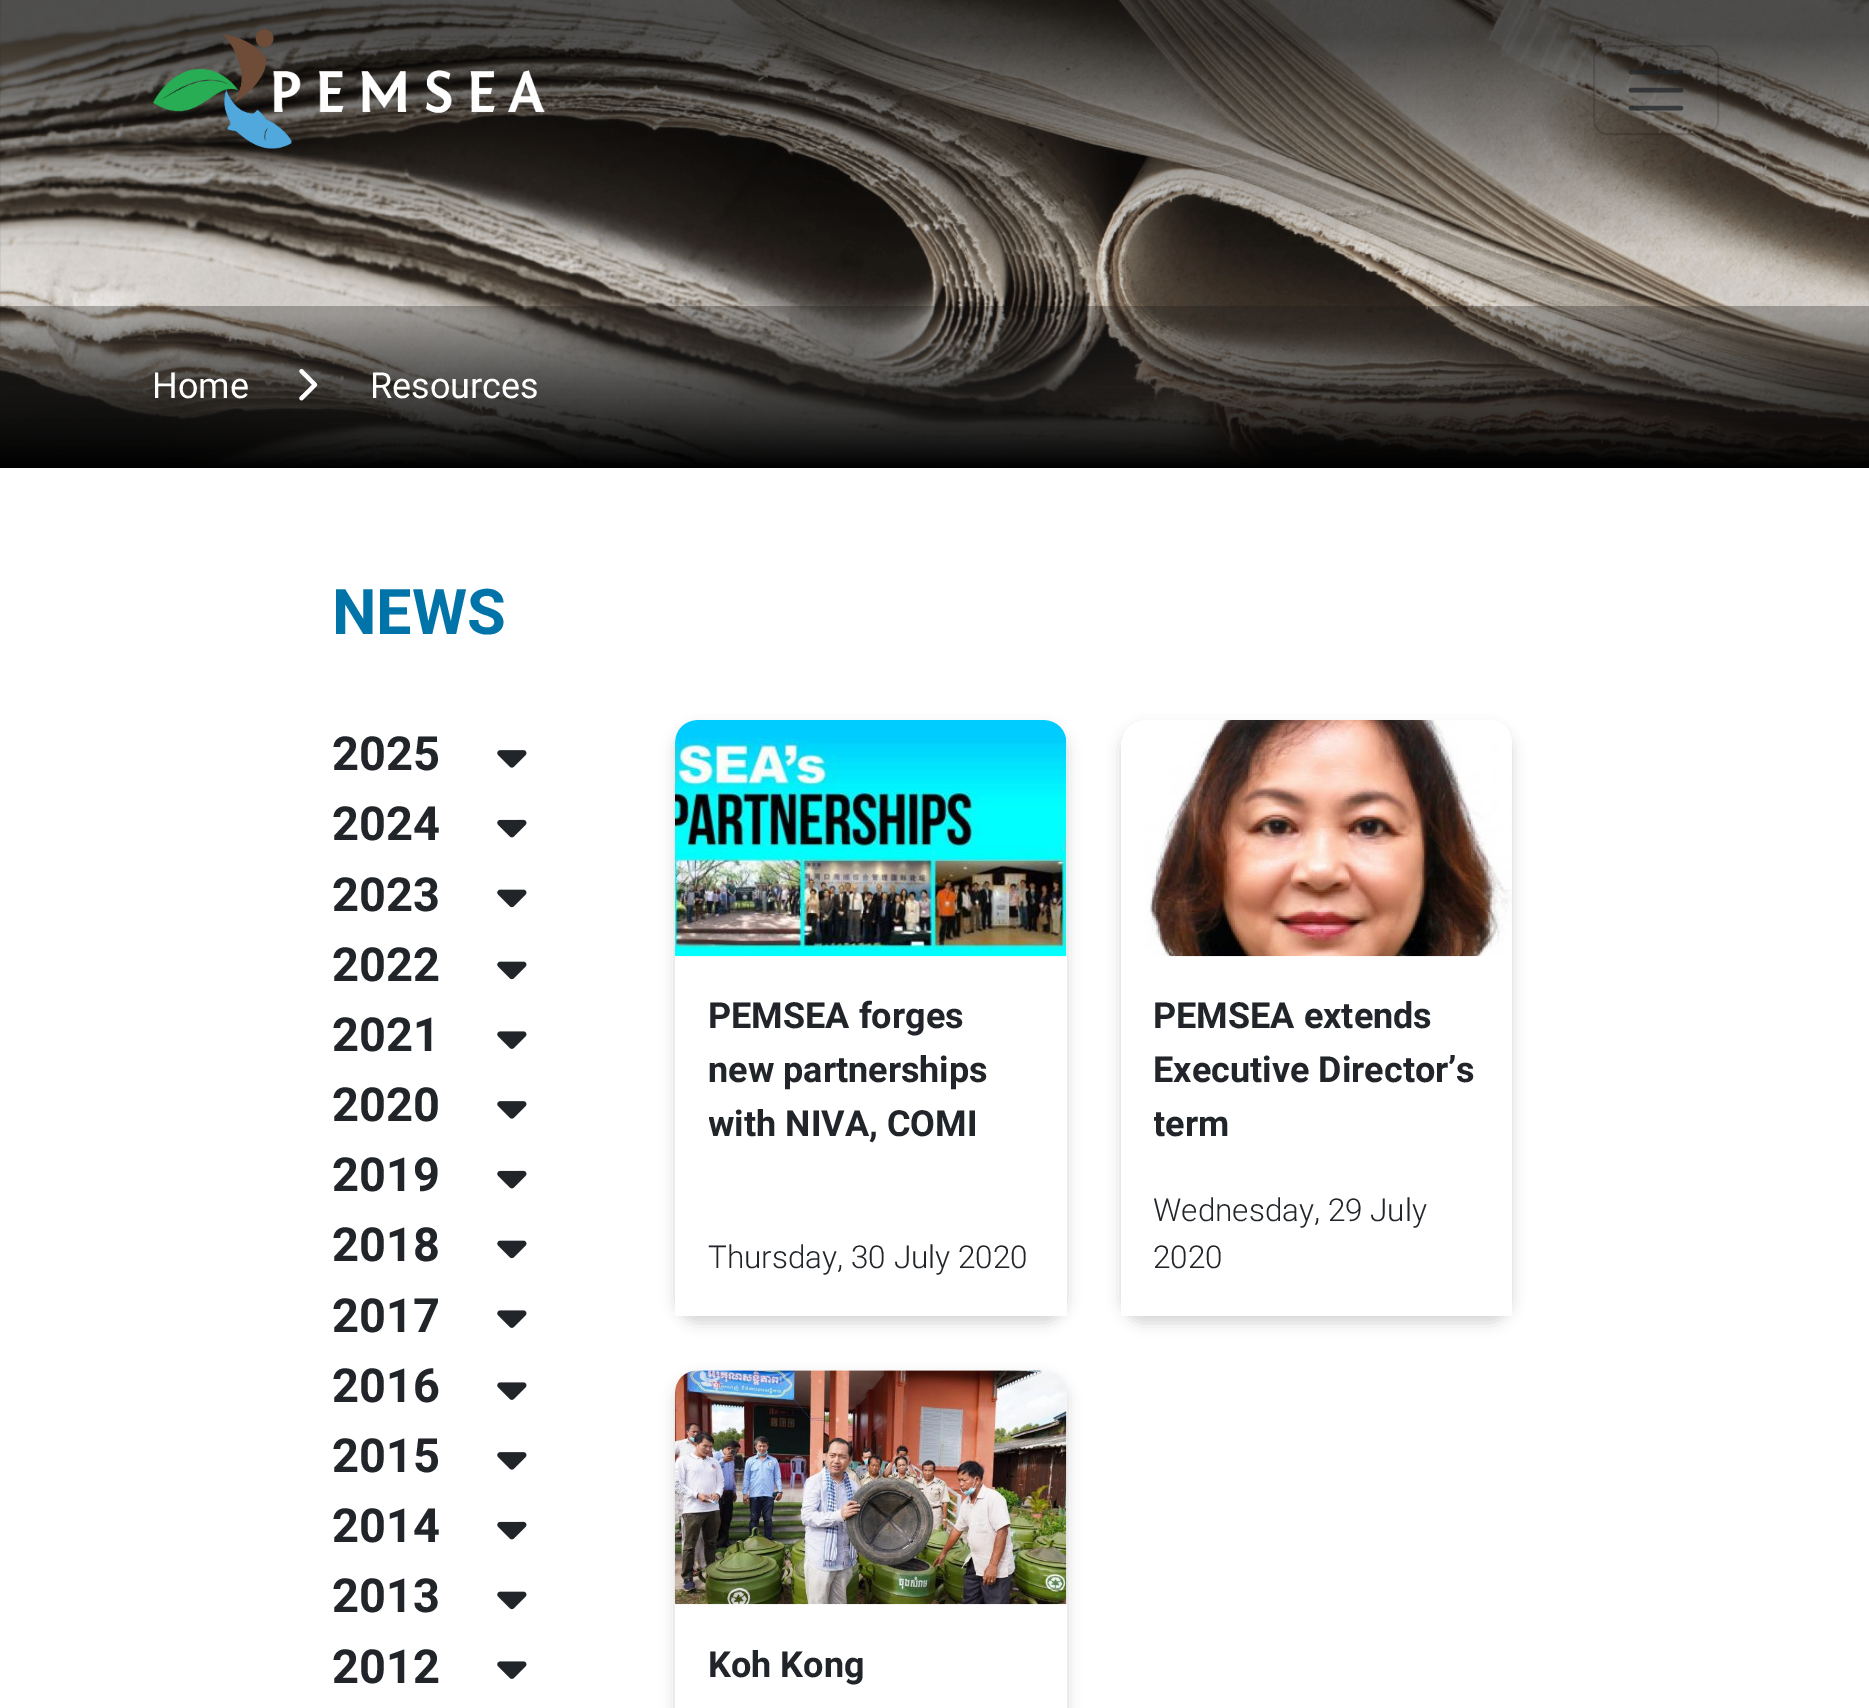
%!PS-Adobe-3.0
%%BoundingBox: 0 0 1869 1708
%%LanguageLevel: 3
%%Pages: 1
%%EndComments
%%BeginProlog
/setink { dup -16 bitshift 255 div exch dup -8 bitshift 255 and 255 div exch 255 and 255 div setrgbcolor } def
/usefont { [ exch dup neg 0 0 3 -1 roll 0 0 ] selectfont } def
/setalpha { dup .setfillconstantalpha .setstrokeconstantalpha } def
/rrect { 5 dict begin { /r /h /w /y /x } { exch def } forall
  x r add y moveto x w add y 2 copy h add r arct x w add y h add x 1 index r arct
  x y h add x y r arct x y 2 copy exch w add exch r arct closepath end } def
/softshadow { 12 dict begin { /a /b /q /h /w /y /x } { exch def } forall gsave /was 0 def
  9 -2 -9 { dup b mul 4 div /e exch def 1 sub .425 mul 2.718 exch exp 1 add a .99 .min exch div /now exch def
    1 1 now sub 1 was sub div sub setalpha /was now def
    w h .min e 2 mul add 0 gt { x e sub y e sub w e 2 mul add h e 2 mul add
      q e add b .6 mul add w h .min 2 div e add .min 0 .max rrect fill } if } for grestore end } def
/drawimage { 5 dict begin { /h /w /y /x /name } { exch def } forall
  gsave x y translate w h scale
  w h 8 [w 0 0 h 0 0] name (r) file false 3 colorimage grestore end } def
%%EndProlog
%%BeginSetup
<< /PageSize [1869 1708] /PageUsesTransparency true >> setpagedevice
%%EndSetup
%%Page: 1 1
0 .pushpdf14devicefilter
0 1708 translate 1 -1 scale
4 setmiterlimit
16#FFFFFF setink
0 0 1869 1708 rectfill
(img2.raw) 0 0 1869 468 drawimage
(img1.raw) 153 29 392 120 drawimage
0.15 setalpha
16#000000 setink
2 setlinewidth
1594 46 124 88 13 rrect stroke
0.75 setalpha
16#212529 setink
4.5 setlinewidth
1 setlinecap
1631 72 moveto 1681 72 lineto 1631 90 moveto 1681 90 lineto 1631 108 moveto 1681 108 lineto stroke
/Roboto-Regular 36 usefont
1 setalpha
16#FFFFFF setink
152 398 moveto (Home) show
(img3.raw) 299 369 19 32 drawimage
370 398 moveto (Resources) show
/Roboto-Bold 63 usefont
16#0074A8 setink
332 634 moveto (NEWS) show
/Roboto-Bold 47 usefont
16#212529 setink
332 770 moveto (2025) show
(img4.raw) 497 750 30 18 drawimage
332 840 moveto (2024) show
(img5.raw) 497 819 30 19 drawimage
332 911 moveto (2023) show
(img6.raw) 497 889 30 19 drawimage
332 981 moveto (2022) show
(img6.raw) 497 961 30 19 drawimage
332 1051 moveto (2021) show
(img7.raw) 497 1031 30 18 drawimage
332 1121 moveto (2020) show
(img4.raw) 497 1101 30 18 drawimage
332 1191 moveto (2019) show
(img5.raw) 497 1170 30 19 drawimage
332 1261 moveto (2018) show
(img6.raw) 497 1240 30 19 drawimage
332 1332 moveto (2017) show
(img7.raw) 497 1310 30 18 drawimage
332 1402 moveto (2016) show
(img7.raw) 497 1382 30 18 drawimage
332 1472 moveto (2015) show
(img4.raw) 497 1452 30 18 drawimage
332 1542 moveto (2014) show
(img5.raw) 497 1521 30 19 drawimage
332 1612 moveto (2013) show
(img6.raw) 497 1591 30 19 drawimage
332 1683 moveto (2012) show
(img7.raw) 497 1661 30 18 drawimage
gsave
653 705 moveto 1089 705 lineto 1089 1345 lineto 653 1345 lineto closepath 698 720 moveto 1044 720 lineto 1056.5 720 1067 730.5 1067 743 curveto 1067 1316 lineto 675 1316 lineto 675 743 lineto 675 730.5 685.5 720 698 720 curveto closepath eoclip newpath
16#000000 setink
675 727 392 596 23 7 0.16 softshadow
grestore
(img8.raw) 675 720 392 237 drawimage
/Roboto-Bold 36 usefont
708 1028 moveto (PEMSEA forges) show
708 1082 moveto (new partnerships) show
gsave
709 990 324 162 rectclip
708 1136 moveto (with NIVA, COMI) show
grestore
/Roboto-Light 31.5 usefont
708 1268 moveto (Thursday, 30 July 2020) show
gsave
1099 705 moveto 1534 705 lineto 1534 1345 lineto 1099 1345 lineto closepath 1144 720 moveto 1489 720 lineto 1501.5 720 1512 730.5 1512 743 curveto 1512 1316 lineto 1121 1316 lineto 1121 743 lineto 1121 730.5 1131.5 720 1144 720 curveto closepath eoclip newpath
16#000000 setink
1121 727 391 596 23 7 0.16 softshadow
grestore
(img9.raw) 1145 720 367 237 drawimage
/Roboto-Bold 36 usefont
1153 1028 moveto (PEMSEA extends) show
1153 1082 moveto (Executive Director’s) show
gsave
1154 990 324 162 rectclip
1153 1136 moveto (term) show
grestore
/Roboto-Light 31.5 usefont
1153 1221 moveto (Wednesday, 29 July) show
1153 1268 moveto (2020) show
gsave
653 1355 moveto 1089 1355 lineto 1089 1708 lineto 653 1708 lineto closepath 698 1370 moveto 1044 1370 lineto 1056.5 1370 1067 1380.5 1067 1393 curveto 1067 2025 lineto 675 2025 lineto 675 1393 lineto 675 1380.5 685.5 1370 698 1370 curveto closepath eoclip newpath
16#000000 setink
675 1377 392 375 23 7 0.16 softshadow
grestore
(img10.raw) 675 1370 392 235 drawimage
/Roboto-Bold 36 usefont
708 1677 moveto (Koh Kong) show
.poppdf14devicefilter showpage
%%EOF
